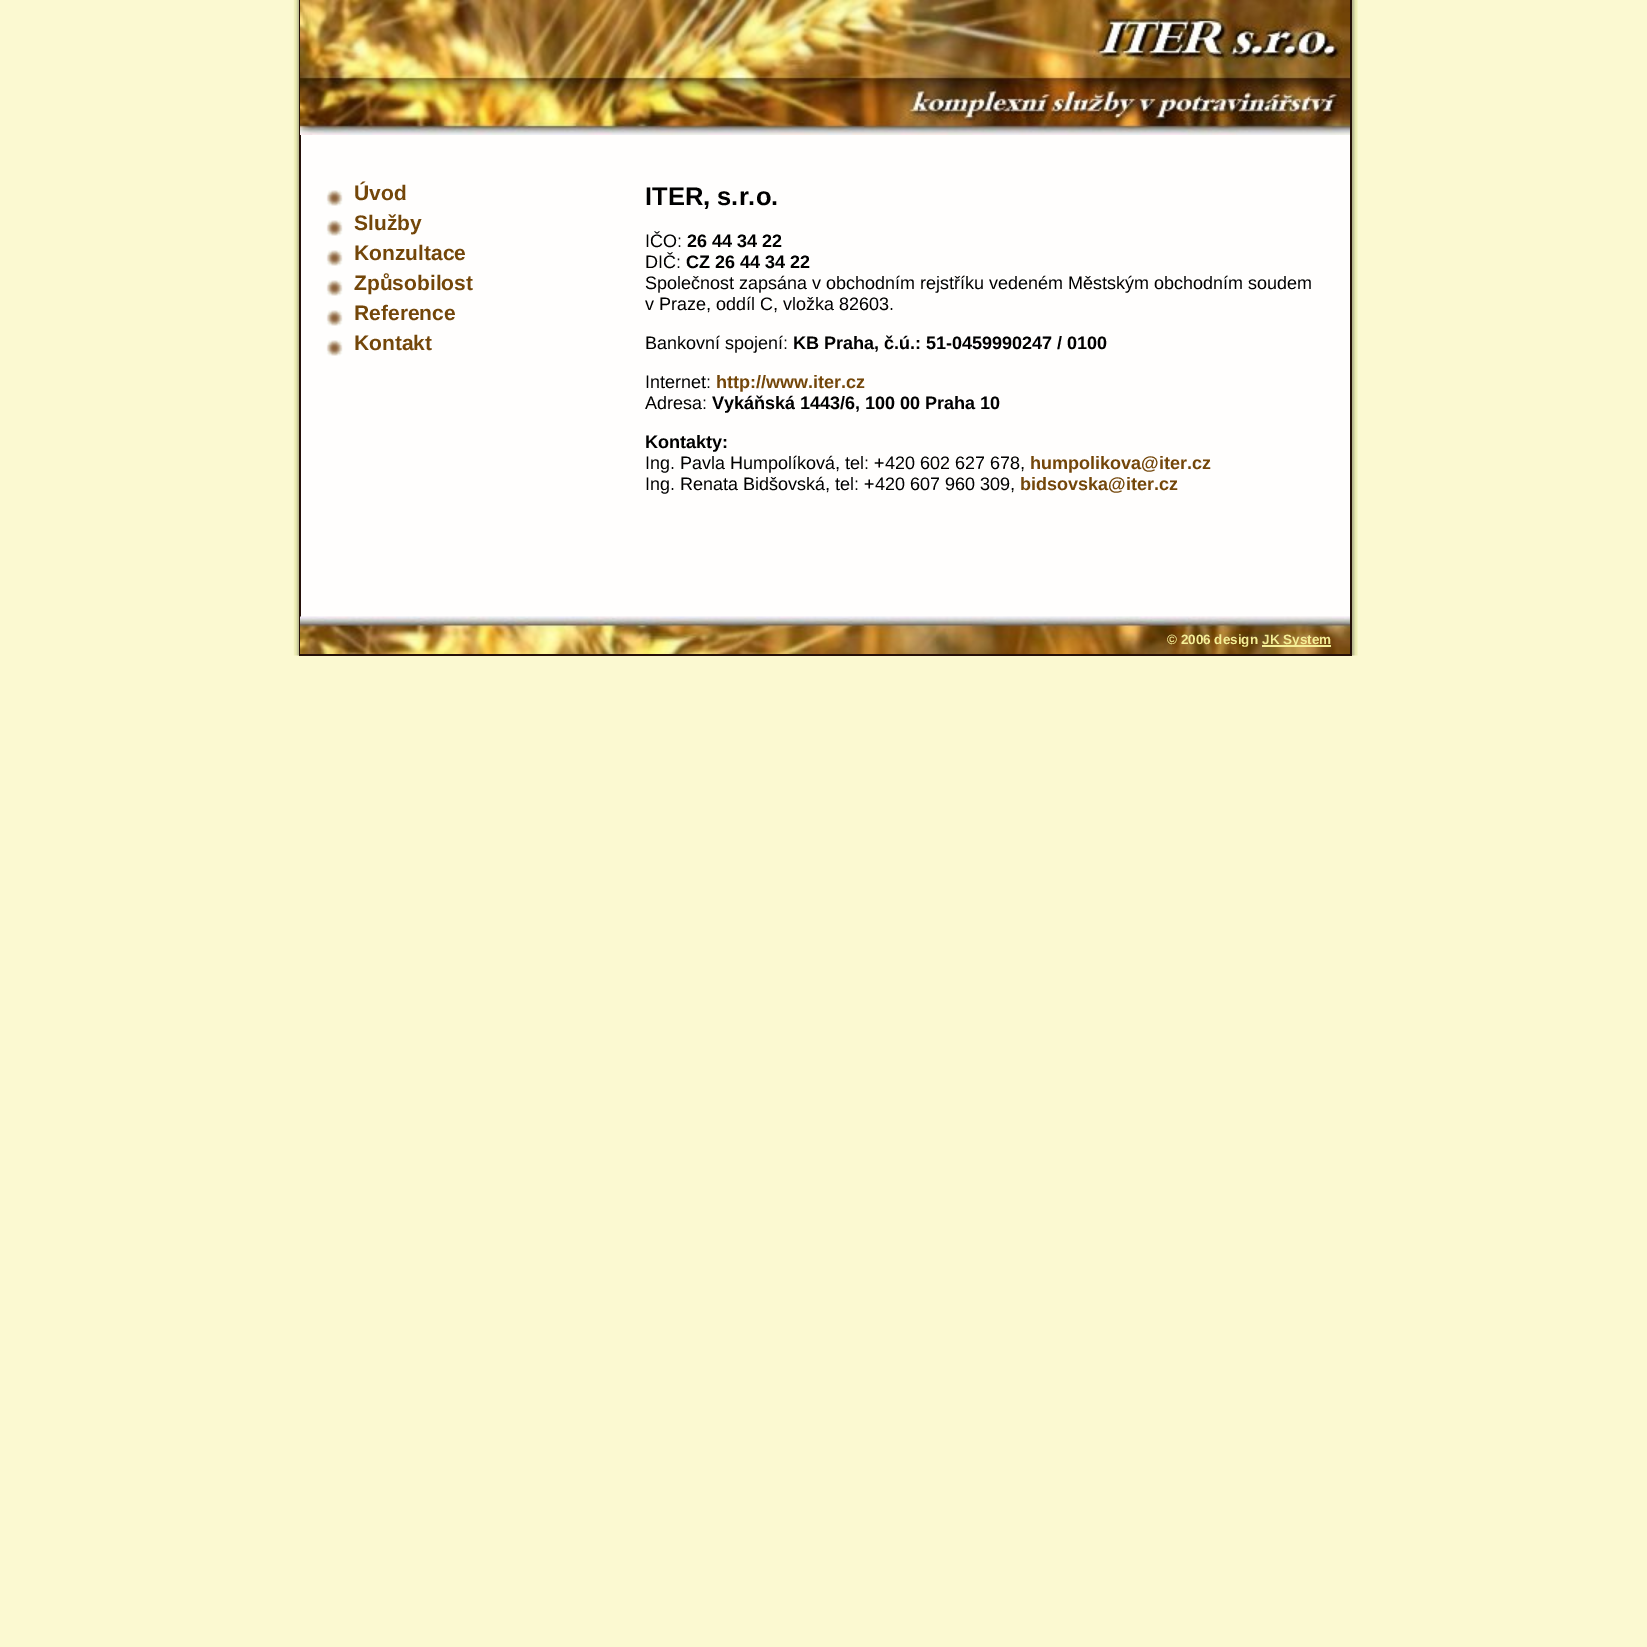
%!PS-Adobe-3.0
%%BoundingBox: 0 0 1647 1647
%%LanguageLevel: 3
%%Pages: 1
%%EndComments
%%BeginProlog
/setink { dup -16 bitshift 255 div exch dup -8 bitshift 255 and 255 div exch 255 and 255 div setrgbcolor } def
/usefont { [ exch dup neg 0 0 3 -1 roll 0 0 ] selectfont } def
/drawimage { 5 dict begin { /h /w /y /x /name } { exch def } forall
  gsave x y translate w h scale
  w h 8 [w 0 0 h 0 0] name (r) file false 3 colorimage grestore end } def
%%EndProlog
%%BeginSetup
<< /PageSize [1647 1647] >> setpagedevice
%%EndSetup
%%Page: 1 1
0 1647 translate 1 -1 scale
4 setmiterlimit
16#FBF9D1 setink
0 0 1647 1647 rectfill
(img1.raw) 293 0 1065 656 drawimage
[
    [301 135 1049 482 16#FFFEFD]
    [1350 0 2 656 16#251009]
    [299 654 1053 2 16#251009]
    [299 0 2 656 16#251009]
] { aload pop setink rectfill } forall
(img2.raw) 300 0 1050 135 drawimage
(img3.raw) 326 190 17 16 drawimage
/LiberationSans-Bold 21 usefont
16#734609 setink
354 200 moveto (Úvod) show
(img3.raw) 326 220 17 16 drawimage
354 230 moveto (Služby) show
(img3.raw) 326 250 17 16 drawimage
354 260 moveto (Konzultace) show
(img3.raw) 326 280 17 16 drawimage
354 290 moveto (Způsobilost) show
(img3.raw) 326 310 17 16 drawimage
354 320 moveto (Reference) show
(img3.raw) 326 340 17 16 drawimage
354 350 moveto (Kontakt) show
/LiberationSans-Bold 25.5 usefont
16#000000 setink
645 205 moveto (ITER, s.r.o.) show
/LiberationSans-Regular 18 usefont
645 247 moveto (IČO:) show
/LiberationSans-Bold 18 usefont
687 247 moveto (26 44 34 22) show
/LiberationSans-Regular 18 usefont
645 268 moveto (DIČ:) show
/LiberationSans-Bold 18 usefont
686 268 moveto (CZ 26 44 34 22) show
/LiberationSans-Regular 18 usefont
[
    [(Společnost zapsána v obchodním rejstříku vedeném Městským obchodním soudem) 645 289]
    [(v Praze, oddíl C, vložka 82603.) 645 310]
    [(Bankovní spojení:) 645 349]
] { aload pop moveto show } forall
/LiberationSans-Bold 18 usefont
793 349 moveto (KB Praha, č.ú.: 51-0459990247 / 0100) show
/LiberationSans-Regular 18 usefont
645 388 moveto (Internet:) show
/LiberationSans-Bold 18 usefont
16#734609 setink
716 388 moveto (http://www.iter.cz) show
/LiberationSans-Regular 18 usefont
16#000000 setink
645 409 moveto (Adresa:) show
/LiberationSans-Bold 18 usefont
712 409 moveto (Vykáňská 1443/6, 100 00 Praha 10) show
645 448 moveto (Kontakty:) show
/LiberationSans-Regular 18 usefont
645 469 moveto (Ing. Pavla Humpolíková, tel: +420 602 627 678,) show
/LiberationSans-Bold 18 usefont
16#734609 setink
1030 469 moveto (humpolikova@iter.cz) show
/LiberationSans-Regular 18 usefont
16#000000 setink
645 490 moveto (Ing. Renata Bidšovská, tel: +420 607 960 309,) show
/LiberationSans-Bold 18 usefont
16#734609 setink
1020 490 moveto (bidsovska@iter.cz) show
(img4.raw) 300 616 1050 38 drawimage
/LiberationSans-Bold 13.5 usefont
16#F5EF97 setink
1167 644 moveto (© 2006 design) show
1262 645 69 2 rectfill
1262 644 moveto (JK System) show
showpage
%%EOF
